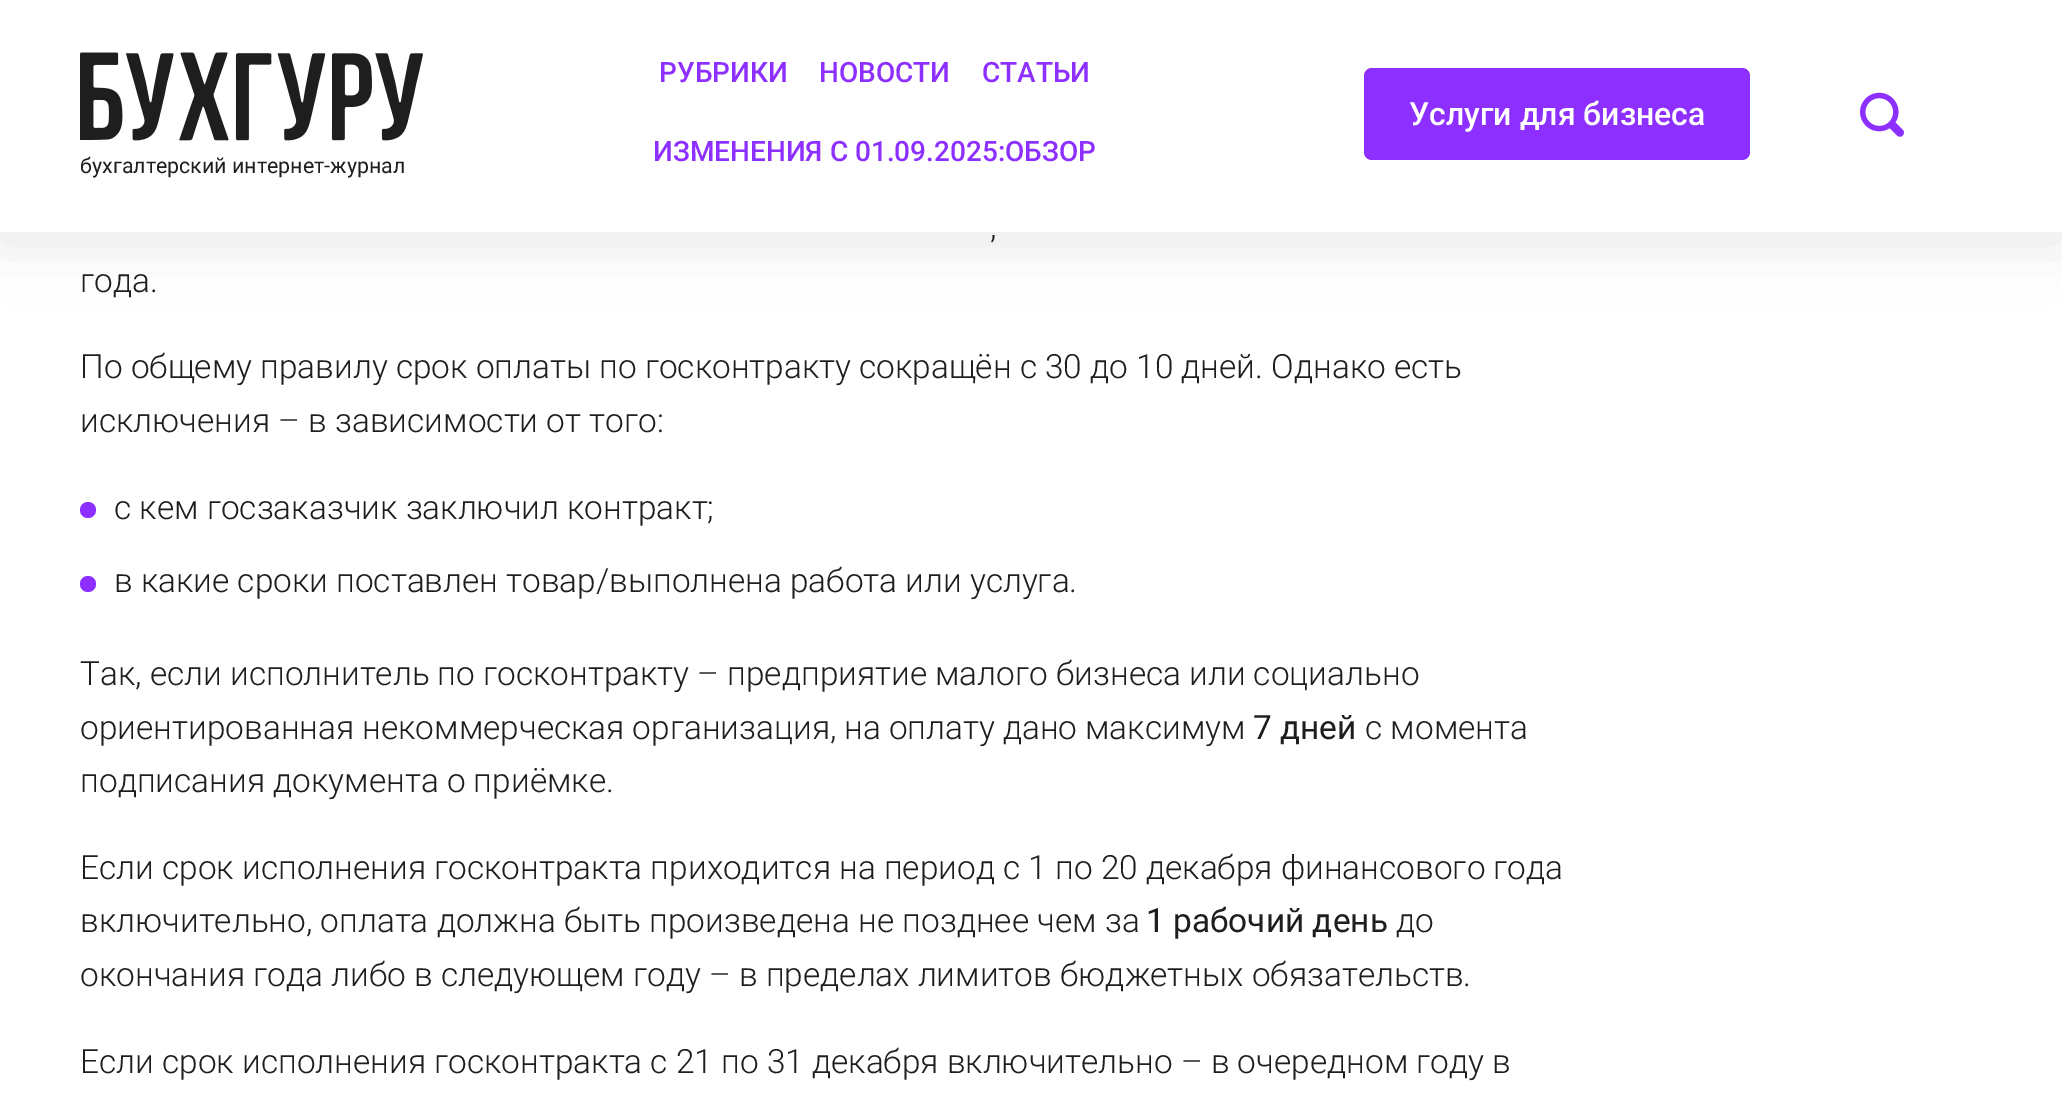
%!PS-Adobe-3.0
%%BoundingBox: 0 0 2062 1101
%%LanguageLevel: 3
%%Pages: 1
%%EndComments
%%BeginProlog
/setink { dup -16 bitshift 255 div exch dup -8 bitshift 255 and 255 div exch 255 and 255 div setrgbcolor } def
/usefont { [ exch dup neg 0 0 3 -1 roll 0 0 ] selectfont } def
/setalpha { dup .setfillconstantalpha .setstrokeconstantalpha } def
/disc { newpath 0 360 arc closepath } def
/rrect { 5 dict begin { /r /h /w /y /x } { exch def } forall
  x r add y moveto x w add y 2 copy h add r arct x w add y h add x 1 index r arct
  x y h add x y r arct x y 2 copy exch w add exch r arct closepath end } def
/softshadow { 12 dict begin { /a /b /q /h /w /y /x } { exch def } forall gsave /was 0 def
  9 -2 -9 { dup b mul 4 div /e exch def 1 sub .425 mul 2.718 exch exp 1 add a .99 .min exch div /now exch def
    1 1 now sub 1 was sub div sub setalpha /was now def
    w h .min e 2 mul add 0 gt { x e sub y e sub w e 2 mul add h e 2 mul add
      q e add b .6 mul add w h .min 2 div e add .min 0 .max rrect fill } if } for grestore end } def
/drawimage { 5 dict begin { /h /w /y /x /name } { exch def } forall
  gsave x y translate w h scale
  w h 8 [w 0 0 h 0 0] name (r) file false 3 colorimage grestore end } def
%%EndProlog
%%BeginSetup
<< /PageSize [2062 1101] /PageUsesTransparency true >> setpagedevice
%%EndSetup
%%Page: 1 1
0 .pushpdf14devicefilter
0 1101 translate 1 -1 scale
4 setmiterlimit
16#FFFFFF setink
0 0 2062 1101 rectfill
16#000000 setink
0 8 2062 232 0 30 0.1 softshadow
16#FFFFFF setink
0 0 2062 232 rectfill
/Roboto-Medium 28 usefont
16#8D30FF setink
[
    [(РУБРИКИ) 659 82]
    [(НОВОСТИ) 819 82]
    [(СТАТЬИ) 982 82]
    [(ИЗМЕНЕНИЯ С 01.09.2025:ОБЗОР) 653 161]
] { aload pop moveto show } forall
1364 68 386 92 8 rrect fill
/Roboto-Medium 32 usefont
16#FFFFFF setink
1409 125 moveto (Услуги для бизнеса) show
(img1.raw) 1860 92 44 45 drawimage
(img2.raw) 80 52 343 89 drawimage
/Roboto-Regular 21.4 usefont
16#1E1E1E setink
80 173 moveto (бухгалтерский интернет-журнал) show
/Roboto-Light 33.4 usefont
[
    [(,) 990 238]
    [(года.) 80 292]
    [(По общему правилу срок оплаты по госконтракту сокращён с 30 до 10 дней. Однако есть) 80 378]
    [(исключения – в зависимости от того:) 80 432]
] { aload pop moveto show } forall
16#8D30FF setink
88 510 8 disc fill
16#1E1E1E setink
114 519 moveto (с кем госзаказчик заключил контракт;) show
16#8D30FF setink
88 584 8 disc fill
16#1E1E1E setink
114 592 moveto -0.1 0 32 (в какие сроки поставлен товар/выполнена работа или услуга.) widthshow
80 685 moveto -0.1 0 32 (Так, если исполнитель по госконтракту – предприятие малого бизнеса или социально) widthshow
80 739 moveto -0.25 0 32 (ориентированная некоммерческая организация, на оплату дано максимум) widthshow
/Roboto-Regular 33.4 usefont
1253 739 moveto (7 дней) show
/Roboto-Light 33.4 usefont
[
    [(с момента) 1365 739]
    [(подписания документа о приёмке.) 80 792]
    [(Если срок исполнения госконтракта приходится на период с 1 по 20 декабря финансового года) 80 879]
    [(включительно, оплата должна быть произведена не позднее чем за) 80 932]
] { aload pop moveto show } forall
/Roboto-Regular 33.4 usefont
1146 932 moveto (1 рабочий день) show
/Roboto-Light 33.4 usefont
[
    [(до) 1396 932]
    [(окончания года либо в следующем году – в пределах лимитов бюджетных обязательств.) 80 986]
    [(Если срок исполнения госконтракта с 21 по 31 декабря включительно – в очередном году в) 80 1073]
] { aload pop moveto show } forall
.poppdf14devicefilter showpage
%%EOF
